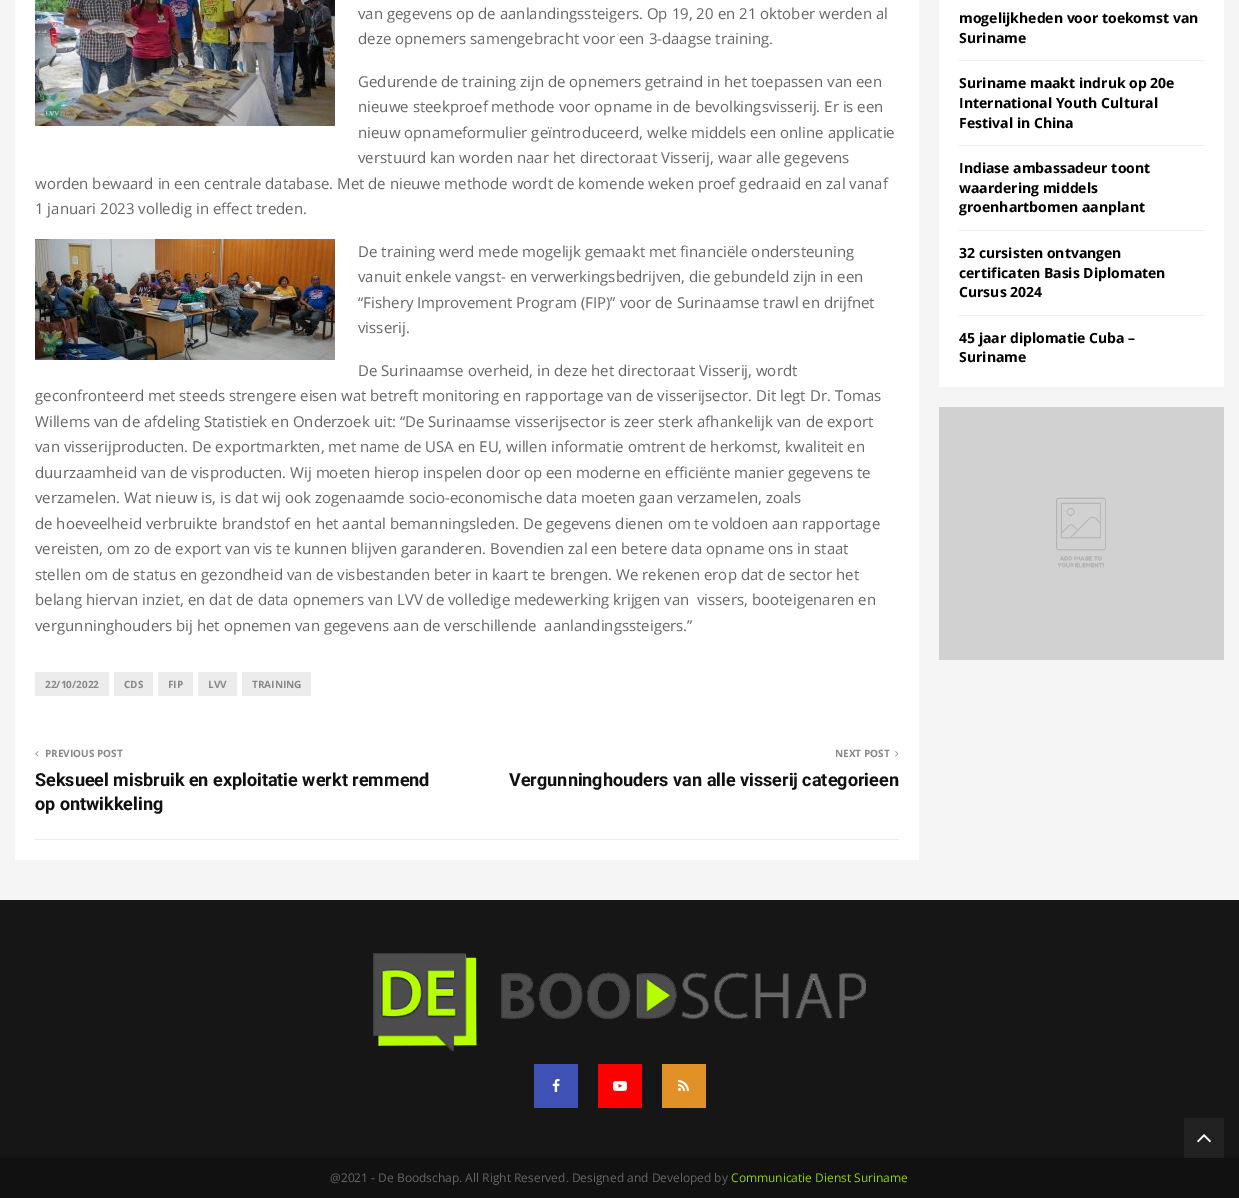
%!PS-Adobe-3.0
%%BoundingBox: 0 0 1239 1198
%%LanguageLevel: 3
%%Pages: 1
%%EndComments
%%BeginProlog
/setink { dup -16 bitshift 255 div exch dup -8 bitshift 255 and 255 div exch 255 and 255 div setrgbcolor } def
/usefont { [ exch dup neg 0 0 3 -1 roll 0 0 ] selectfont } def
/drawimage { 5 dict begin { /h /w /y /x /name } { exch def } forall
  gsave x y translate w h scale
  w h 8 [w 0 0 h 0 0] name (r) file false 3 colorimage grestore end } def
%%EndProlog
%%BeginSetup
<< /PageSize [1239 1198] >> setpagedevice
%%EndSetup
%%Page: 1 1
0 1198 translate 1 -1 scale
4 setmiterlimit
16#F5F5F5 setink
0 0 1239 1198 rectfill
16#FFFFFF setink
15 0 904 860 rectfill
(img1.raw) 35 0 300 126 drawimage
/OpenSans-Regular 15 usefont
16#666666 setink
[
    [(van gegevens op de aanlandingssteigers. Op 19, 20 en 21 oktober werden al) 358 19]
    [(deze opnemers samengebracht voor een 3-daagse training.) 358 44]
    [(Gedurende de training zijn de opnemers getraind in het toepassen van een) 358 87]
    [(nieuwe steekproef methode voor opname in de bevolkingsvisserij. Er is een) 358 112]
    [(nieuw opnameformulier geïntroduceerd, welke middels een online applicatie) 358 138]
    [(verstuurd kan worden naar het directoraat Visserij, waar alle gegevens) 358 163]
    [(worden bewaard in een centrale database. Met de nieuwe methode wordt de komende weken proef gedraaid en zal vanaf) 35 189]
    [(1 januari 2023 volledig in effect treden.) 35 214]
] { aload pop moveto show } forall
(img2.raw) 35 239 300 121 drawimage
[
    [(De training werd mede mogelijk gemaakt met financiële ondersteuning) 358 257]
    [(vanuit enkele vangst- en verwerkingsbedrijven, die gebundeld zijn in een) 358 282]
    [(“Fishery Improvement Program \(FIP\)” voor de Surinaamse trawl en drijfnet) 358 308]
    [(visserij.) 358 333]
    [(De Surinaamse overheid, in deze het directoraat Visserij, wordt) 358 376]
    [(geconfronteerd met steeds strengere eisen wat betreft monitoring en rapportage van de visserijsector. Dit legt Dr. Tomas) 35 401]
    [(Willems van de afdeling Statistiek en Onderzoek uit: “De Surinaamse visserijsector is zeer sterk afhankelijk van de export) 35 427]
    [(van visserijproducten. De exportmarkten, met name de USA en EU, willen informatie omtrent de herkomst, kwaliteit en) 35 452]
    [(duurzaamheid van de visproducten. Wij moeten hierop inspelen door op een moderne en efficiënte manier gegevens te) 35 478]
    [(verzamelen. Wat nieuw is, is dat wij ook zogenaamde socio-economische data moeten gaan verzamelen, zoals) 35 503]
    [(de hoeveelheid verbruikte brandstof en het aantal bemanningsleden. De gegevens dienen om te voldoen aan rapportage) 35 529]
    [(vereisten, om zo de export van vis te kunnen blijven garanderen. Bovendien zal een betere data opname ons in staat) 35 554]
    [(stellen om de status en gezondheid van de visbestanden beter in kaart te brengen. We rekenen erop dat de sector het) 35 580]
    [(belang hiervan inziet, en dat de data opnemers van LVV de volledige medewerking krijgen van  vissers, booteigenaren en) 35 605]
    [(vergunninghouders bij het opnemen van gegevens aan de verschillende  aanlandingssteigers.”) 35 631]
] { aload pop moveto show } forall
16#ECECEC setink
35 672 74 24 rectfill
/OpenSans-Bold 10 usefont
16#888888 setink
45 688 moveto (22/10/2022) show
16#ECECEC setink
114 672 39 24 rectfill
16#888888 setink
124 688 moveto (CDS) show
16#ECECEC setink
158 672 35 24 rectfill
16#888888 setink
168 688 moveto (FIP) show
16#ECECEC setink
198 672 39 24 rectfill
16#888888 setink
208 688 moveto (LVV) show
16#ECECEC setink
242 672 69 24 rectfill
16#888888 setink
252 688 moveto (TRAINING) show
16#ECECEC setink
35 839 864 1 rectfill
(img3.raw) 35 751 4 6 drawimage
16#888888 setink
45 757 moveto (PREVIOUS POST) show
/Roboto-Bold 18 usefont
16#111111 setink
35 786 moveto (Seksueel misbruik en exploitatie werkt remmend) show
35 810 moveto (op ontwikkeling) show
/OpenSans-Bold 10 usefont
16#888888 setink
835 757 moveto (NEXT POST) show
(img4.raw) 895 751 4 6 drawimage
/Roboto-Bold 18 usefont
16#111111 setink
509 786 moveto (Vergunninghouders van alle visserij categorieen) show
16#FFFFFF setink
939 0 285 387 rectfill
16#ECECEC setink
959 60 245 1 rectfill
/OpenSans-Bold 14 usefont
16#000000 setink
959 23 moveto (mogelijkheden voor toekomst van) show
959 43 moveto (Suriname) show
16#ECECEC setink
959 145 245 1 rectfill
16#000000 setink
[
    [(Suriname maakt indruk op 20e) 959 88]
    [(International Youth Cultural) 959 108]
    [(Festival in China) 959 128]
] { aload pop moveto show } forall
16#ECECEC setink
959 230 245 1 rectfill
16#000000 setink
[
    [(Indiase ambassadeur toont) 959 173]
    [(waardering middels) 959 193]
    [(groenhartbomen aanplant) 959 212]
] { aload pop moveto show } forall
16#ECECEC setink
959 315 245 1 rectfill
16#000000 setink
[
    [(32 cursisten ontvangen) 959 258]
    [(certificaten Basis Diplomaten) 959 278]
    [(Cursus 2024) 959 297]
    [(45 jaar diplomatie Cuba –) 959 343]
    [(Suriname) 959 362]
] { aload pop moveto show } forall
(img5.raw) 939 407 285 253 drawimage
16#161616 setink
0 900 1239 258 rectfill
(img6.raw) 373 953 493 98 drawimage
16#3F51B5 setink
534 1064 44 44 rectfill
(img7.raw) 552 1079 8 13 drawimage
16#FF0000 setink
598 1064 44 44 rectfill
(img8.raw) 613 1081 14 10 drawimage
16#E19126 setink
662 1064 44 44 rectfill
(img9.raw) 678 1080 11 11 drawimage
16#111111 setink
0 1158 1239 40 rectfill
/OpenSans-Regular 12 usefont
16#666666 setink
330 1182 moveto (@2021 - De Boodschap. All Right Reserved. Designed and Developed by) show
16#90D300 setink
731 1182 moveto (Communicatie Dienst Suriname) show
16#212121 setink
1184 1118 40 40 rectfill
(img10.raw) 1197 1134 14 9 drawimage
showpage
%%EOF
